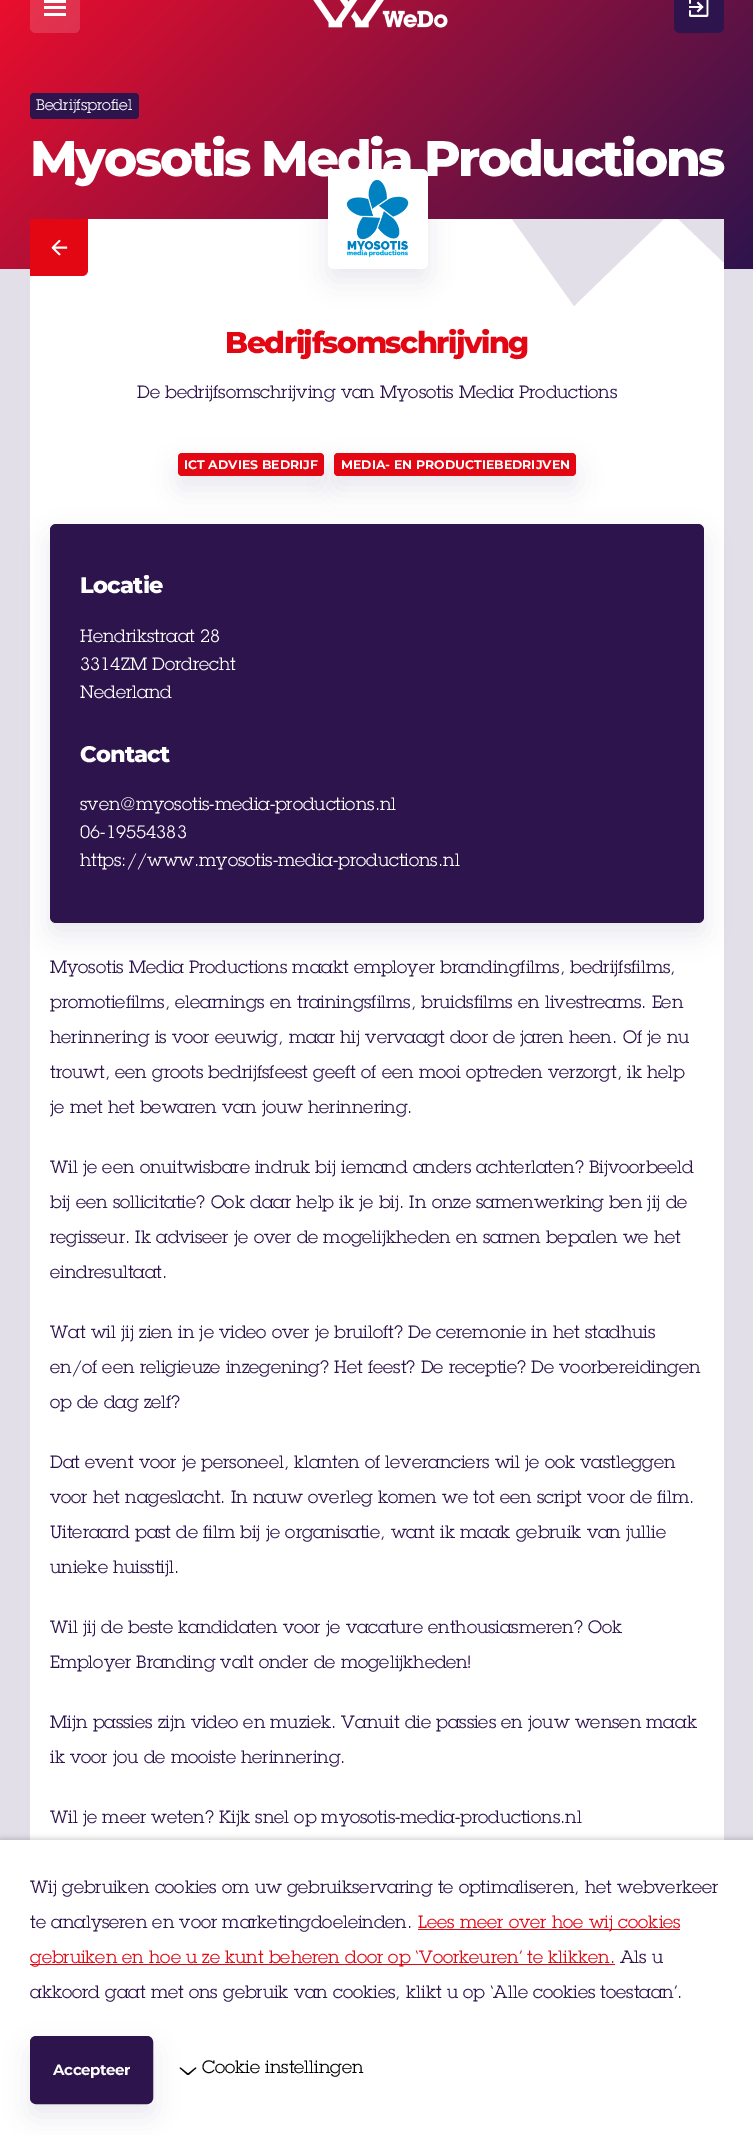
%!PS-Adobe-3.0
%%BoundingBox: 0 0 753 2135
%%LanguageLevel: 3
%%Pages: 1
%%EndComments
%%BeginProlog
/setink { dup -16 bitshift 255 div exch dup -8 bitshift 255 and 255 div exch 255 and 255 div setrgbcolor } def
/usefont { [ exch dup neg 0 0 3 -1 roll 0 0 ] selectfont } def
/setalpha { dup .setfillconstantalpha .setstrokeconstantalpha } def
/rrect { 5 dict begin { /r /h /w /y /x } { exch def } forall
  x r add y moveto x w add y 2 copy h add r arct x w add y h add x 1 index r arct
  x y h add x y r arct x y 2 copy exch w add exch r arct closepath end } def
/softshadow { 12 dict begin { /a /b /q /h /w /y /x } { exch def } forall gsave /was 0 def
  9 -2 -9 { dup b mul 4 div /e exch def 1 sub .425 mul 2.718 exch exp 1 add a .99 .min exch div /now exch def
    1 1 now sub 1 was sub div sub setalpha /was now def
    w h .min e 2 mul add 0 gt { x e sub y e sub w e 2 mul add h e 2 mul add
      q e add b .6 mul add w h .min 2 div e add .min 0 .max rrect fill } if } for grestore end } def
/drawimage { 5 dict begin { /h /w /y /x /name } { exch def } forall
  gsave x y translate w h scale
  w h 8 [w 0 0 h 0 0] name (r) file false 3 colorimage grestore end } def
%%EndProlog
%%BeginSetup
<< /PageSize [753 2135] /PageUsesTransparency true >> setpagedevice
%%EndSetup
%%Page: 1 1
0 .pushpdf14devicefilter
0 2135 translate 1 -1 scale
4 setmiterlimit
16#E3DFE8 setink
0 0 753 2135 rectfill
gsave 0 0 moveto 753 0 lineto 753 269 lineto 0 269 lineto closepath clip newpath
<< /ShadingType 2 /ColorSpace /DeviceRGB /Coords [109 -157 644 378] /Extend [true true] /Function << /FunctionType 2 /Domain [0 1] /C0 [0.953 0.055 0.169] /C1 [0.18 0.078 0.302] /N 1 >> >> shfill grestore
0.15 setalpha
16#FFFFFF setink
30 -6 50 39 6 rrect fill
1 setalpha
[
    [44 0 22 3 16#FFFFFF]
    [44 6 22 3 16#FFFFFF]
    [44 13 22 3 16#FFFFFF]
] { aload pop setink rectfill } forall
(img1.raw) 313 0 135 28 drawimage
16#2E144D setink
674 -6 50 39 6 rrect fill
(img2.raw) 689 0 20 17 drawimage
30 93 109 26 4 rrect fill
/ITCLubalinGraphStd-Regular 15 usefont
16#FFFFFF setink
36 110 moveto (Bedrijfsprofiel) show
/Montserrat-ExtraBold 50 usefont
30 176 moveto -2.35 0 (Myosotis Media Productions) ashow
30 219 694 1621 rectfill
16#E30613 setink
30 219 moveto 88 219 lineto 88 270 lineto 88 273.5 85.5 276 82 276 curveto 30 276 lineto closepath fill
(img3.raw) 51 239 17 17 drawimage
16#2E144D setink
328 181 100 100 6 12.5 0.1 softshadow
16#FFFFFF setink
328 169 100 100 6 rrect fill
(img4.raw) 346 179 63 78 drawimage
gsave
334 219 390 87 rectclip
16#E3DFE8 setink
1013 -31 moveto 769 306 lineto 671 212 lineto 574 306 lineto 334 -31 lineto closepath fill
grestore
/Montserrat-ExtraBold 30 usefont
16#E30613 setink
225 353 moveto -1.5 0 (Bedrijfsomschrijving) ashow
/ITCLubalinGraphStd-Regular 17.5 usefont
16#2E144D setink
137 398 moveto (De bedrijfsomschrijving van Myosotis Media Productions) show
178 465 146 24 4 12.5 0.1 softshadow
16#E30613 setink
178 453 146 23 4 rrect fill
/Montserrat-Bold 12.5 usefont
16#FFFFFF setink
184 469 moveto (ICT ADVIES BEDRIJF) show
16#2E144D setink
334 465 242 24 4 12.5 0.1 softshadow
16#E30613 setink
334 453 242 23 4 rrect fill
16#FFFFFF setink
341 469 moveto (MEDIA- EN PRODUCTIEBEDRIJVEN) show
16#2E144D setink
50 536 654 399 6 12.5 0.1 softshadow
50 524 654 399 6 rrect fill
/Montserrat-ExtraBold 22.5 usefont
16#FFFFFF setink
80 593 moveto -0.75 0 (Locatie) ashow
/ITCLubalinGraphStd-Regular 17.5 usefont
[
    [(Hendrikstraat 28) 80 642]
    [(3314ZM Dordrecht) 80 670]
    [(Nederland) 80 698]
] { aload pop moveto show } forall
/Montserrat-ExtraBold 22.5 usefont
80 762 moveto -0.75 0 (Contact) ashow
/ITCLubalinGraphStd-Regular 17.5 usefont
[
    [(sven@myosotis-media-productions.nl) 80 810]
    [(06-19554383) 80 838]
    [(https://www.myosotis-media-productions.nl) 80 866]
] { aload pop moveto show } forall
16#2E144D setink
[
    [(Myosotis Media Productions maakt employer brandingfilms, bedrijfsfilms,) 50 973]
    [(promotiefilms, elearnings en trainingsfilms, bruidsfilms en livestreams. Een) 50 1008]
    [(herinnering is voor eeuwig, maar hij vervaagt door de jaren heen. Of je nu) 50 1043]
    [(trouwt, een groots bedrijfsfeest geeft of een mooi optreden verzorgt, ik help) 50 1078]
    [(je met het bewaren van jouw herinnering.) 50 1113]
    [(Wil je een onuitwisbare indruk bij iemand anders achterlaten? Bijvoorbeeld) 50 1173]
    [(bij een sollicitatie? Ook daar help ik je bij. In onze samenwerking ben jij de) 50 1208]
    [(regisseur. Ik adviseer je over de mogelijkheden en samen bepalen we het) 50 1243]
    [(eindresultaat.) 50 1278]
    [(Wat wil jij zien in je video over je bruiloft? De ceremonie in het stadhuis) 50 1338]
    [(en/of een religieuze inzegening? Het feest? De receptie? De voorbereidingen) 50 1373]
    [(op de dag zelf?) 50 1408]
    [(Dat event voor je personeel, klanten of leveranciers wil je ook vastleggen) 50 1468]
    [(voor het nageslacht. In nauw overleg komen we tot een script voor de film.) 50 1503]
    [(Uiteraard past de film bij je organisatie, want ik maak gebruik van jullie) 50 1538]
    [(unieke huisstijl.) 50 1573]
    [(Wil jij de beste kandidaten voor je vacature enthousiasmeren? Ook) 50 1633]
    [(Employer Branding valt onder de mogelijkheden!) 50 1668]
    [(Mijn passies zijn video en muziek. Vanuit die passies en jouw wensen maak) 50 1728]
    [(ik voor jou de mooiste herinnering.) 50 1763]
    [(Wil je meer weten? Kijk snel op myosotis-media-productions.nl) 50 1823]
] { aload pop moveto show } forall
16#000000 setink
0 1838 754 295 0 2.5 0.15 softshadow
16#FFFFFF setink
0 1840 753 295 rectfill
16#2E144D setink
30 1893 moveto (Wij gebruiken cookies om uw gebruikservaring te optimaliseren, het webverkeer) show
30 1928 moveto (te analyseren en voor marketingdoeleinden.) show
16#E30613 setink
418 1929 262 1 rectfill
418 1928 moveto (Lees meer over hoe wij cookies) show
30 1964 585 1 rectfill
30 1963 moveto (gebruiken en hoe u ze kunt beheren door op ‘Voorkeuren’ te klikken.) show
16#2E144D setink
620 1963 moveto (Als u) show
30 1998 moveto (akkoord gaat met ons gebruik van cookies, klikt u op ‘Alle cookies toestaan’.) show
16#000000 setink
180.5 2067.5 moveto 188.5 2074 lineto 187.5 2075 lineto 179.5 2068 lineto closepath fill
187.5 2074 moveto 195.5 2067.5 lineto 196.5 2068 lineto 188.5 2075 lineto closepath fill
16#2E144D setink
30 2049 123 67 6 12.5 0.1 softshadow
31.5 2037.5 120 65 4.5 rrect gsave fill grestore
3 setlinewidth
stroke
/Montserrat-Bold 15 usefont
16#FFFFFF setink
53 2075 moveto -0.4 0 (Accepteer) ashow
/ITCLubalinGraphStd-Regular 17.5 usefont
16#000000 setink
202 2073 moveto (Cookie instellingen) show
.poppdf14devicefilter showpage
%%EOF
